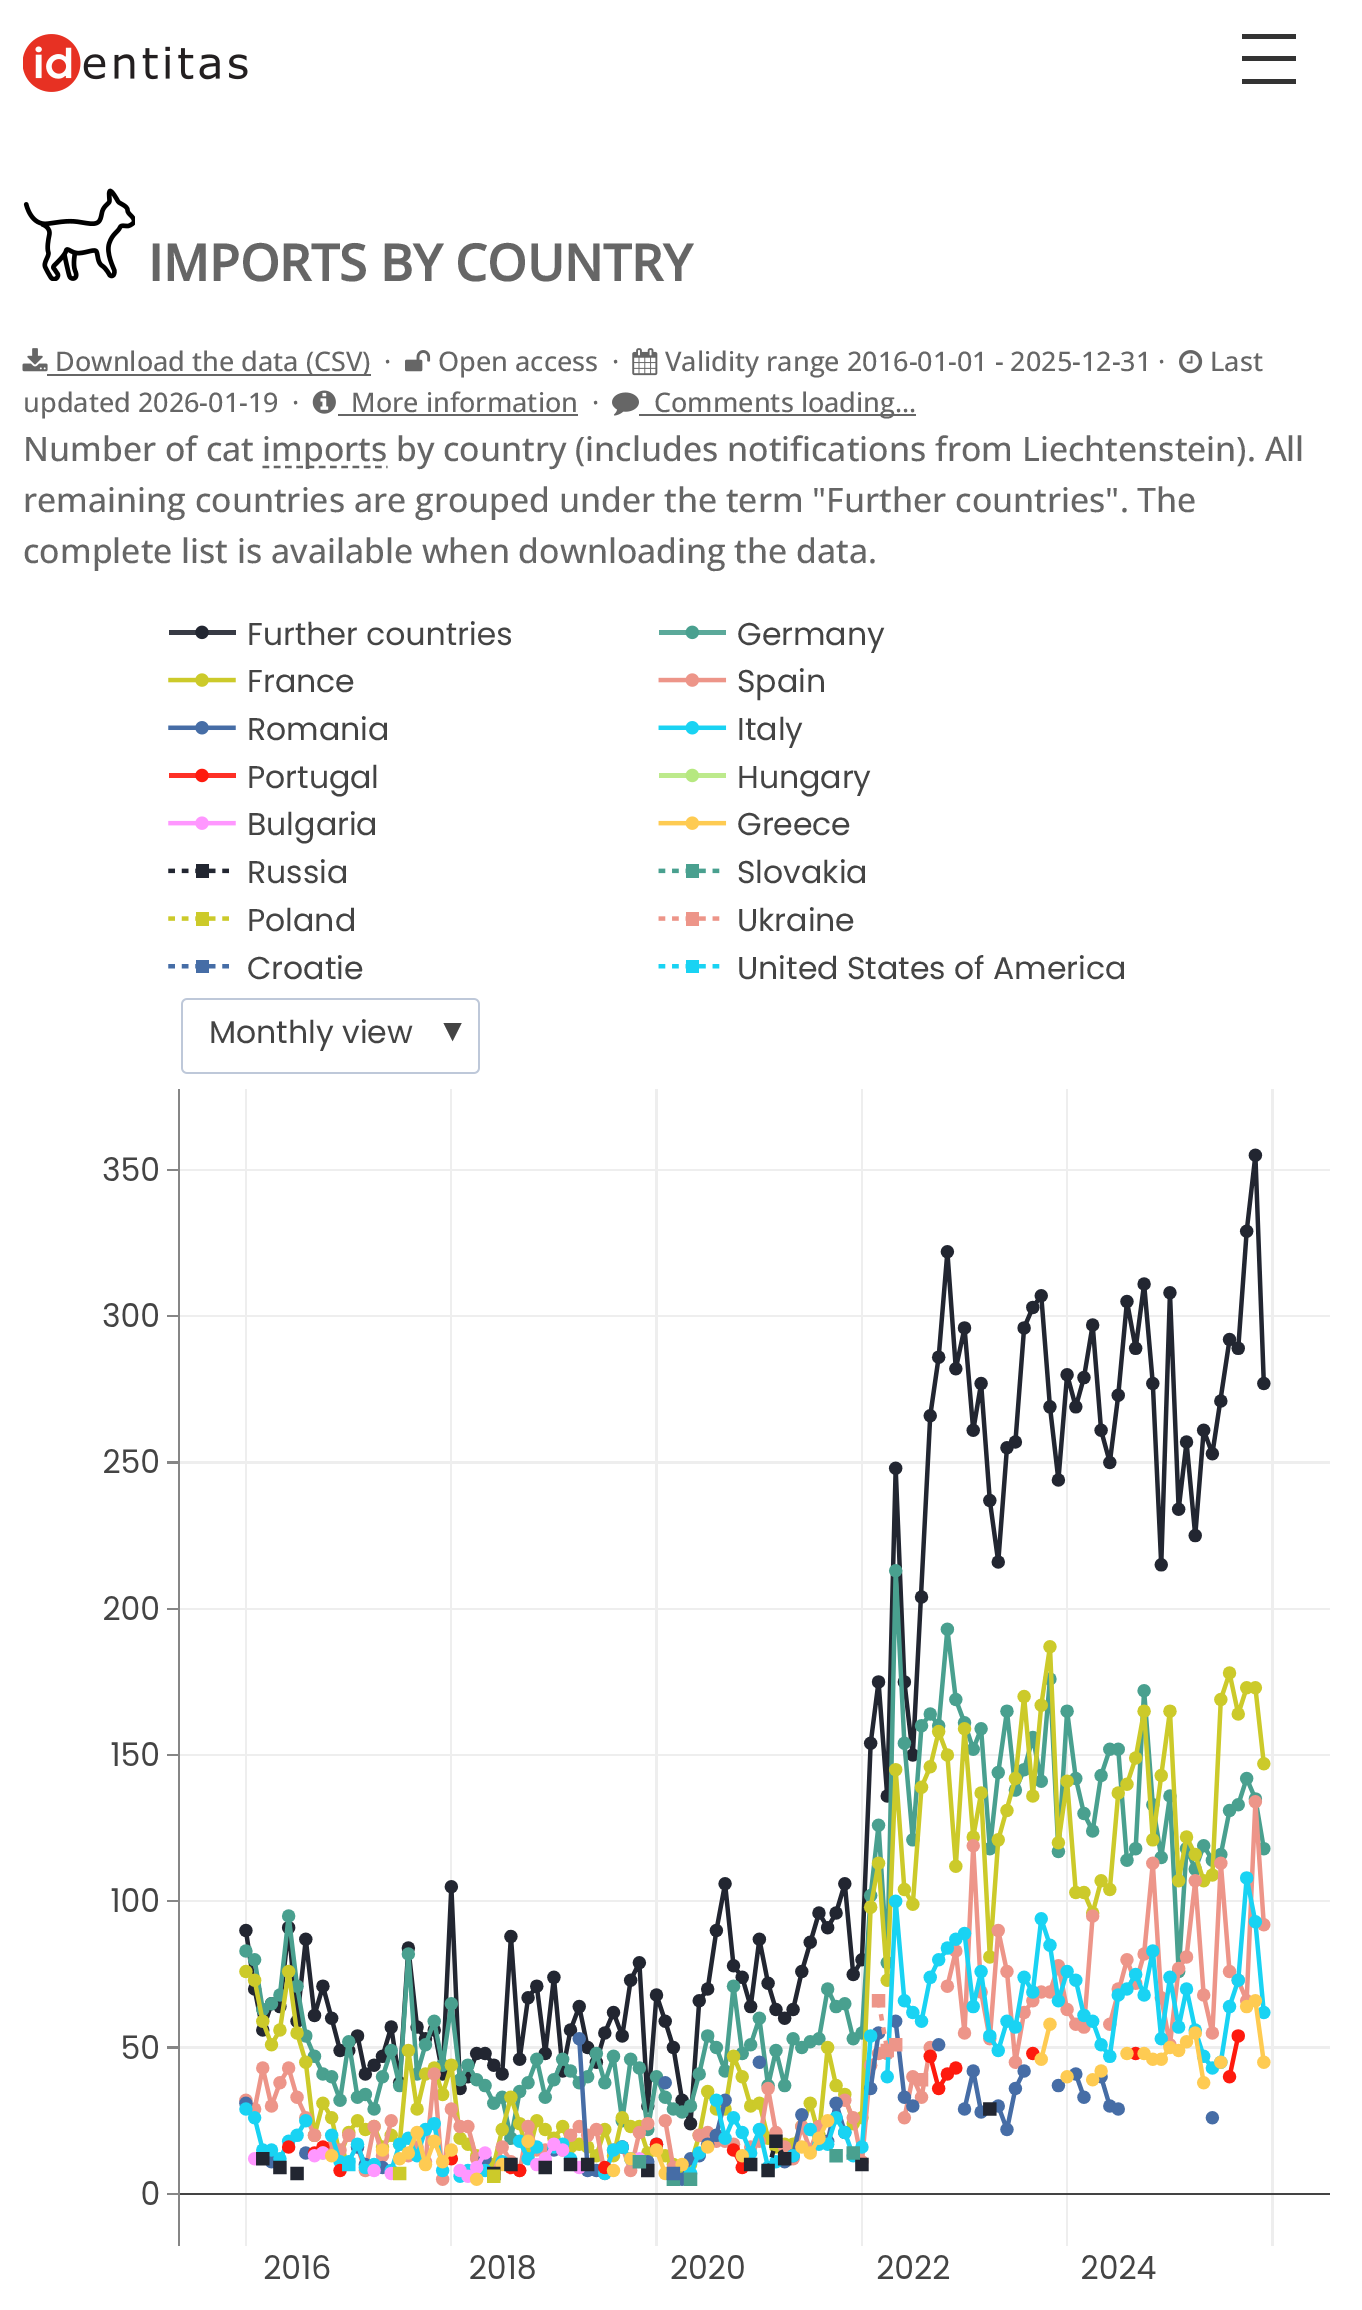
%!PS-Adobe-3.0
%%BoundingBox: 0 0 1362 2310
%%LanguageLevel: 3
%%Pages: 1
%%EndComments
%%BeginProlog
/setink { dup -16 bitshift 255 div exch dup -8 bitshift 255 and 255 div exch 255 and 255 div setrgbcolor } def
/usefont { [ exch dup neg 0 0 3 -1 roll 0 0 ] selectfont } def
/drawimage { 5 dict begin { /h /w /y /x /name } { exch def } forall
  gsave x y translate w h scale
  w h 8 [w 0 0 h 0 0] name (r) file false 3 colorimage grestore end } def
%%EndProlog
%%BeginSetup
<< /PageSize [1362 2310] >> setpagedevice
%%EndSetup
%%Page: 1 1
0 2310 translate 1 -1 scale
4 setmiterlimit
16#FFFFFF setink
0 0 1362 2310 rectfill
(img1.raw) 23 34 225 58 drawimage
[
    [1242 34 54 5 16#333333]
    [1242 56 54 5 16#333333]
    [1242 79 54 5 16#333333]
] { aload pop setink rectfill } forall
(img2.raw) 23 188 112 93 drawimage
/OpenSans-Bold 50.6 usefont
16#666666 setink
148 281 moveto (IMPORTS BY COUNTRY) show
(img3.raw) 22 348 26 24 drawimage
47 374 324 2 rectfill
/OpenSans-Medium 27 usefont
55 371 moveto (Download the data \(CSV\)) show
384 371 moveto (·) show
(img4.raw) 405 350 26 22 drawimage
438 371 moveto (Open access) show
612 371 moveto (·) show
(img5.raw) 632 348 26 28 drawimage
665 371 moveto (Validity range 2016-01-01 - 2025-12-31 ·) show
(img6.raw) 1179 350 24 24 drawimage
[
    [(Last) 1210 371]
    [(updated 2026-01-19) 23 412]
    [(·) 292 412]
] { aload pop moveto show } forall
(img7.raw) 312 390 24 24 drawimage
351 412 moveto (More information) show
338 414 240 2 rectfill
592 412 moveto (·) show
(img8.raw) 612 392 27 24 drawimage
639 414 277 2 rectfill
654 412 moveto (Comments loading...) show
/OpenSans-Medium 33.75 usefont
23 461 moveto (Number of cat) show
2.2 setlinewidth
[6.75 4.5] 0 setdash
262.5 467 moveto 387.5 467 lineto stroke
[
    [(imports by country \(includes notifications from Liechtenstein\). All) 262 461]
    [(remaining countries are grouped under the term "Further countries". The) 23 512]
    [(complete list is available when downloading the data.) 23 563]
] { aload pop moveto show } forall
/Poppins-Regular 31.5 usefont
16#444444 setink
247 645 moveto (Further countries) show
(img9.raw) 168 625 559 449 drawimage
[
    [(Germany) 737 645]
    [(France) 247 692]
    [(Spain) 737 692]
    [(Romania) 247 740]
    [(Italy) 737 740]
    [(Portugal) 247 788]
    [(Hungary) 737 788]
    [(Bulgaria) 247 835]
    [(Greece) 737 835]
    [(Russia) 247 883]
    [(Slovakia) 737 883]
    [(Poland) 247 931]
    [(Ukraine) 737 931]
    [(Croatie) 247 979]
    [(United States of America) 737 979]
    [(Monthly view) 209 1043]
] { aload pop moveto show } forall
/LiberationSans-Regular 31.5 usefont
437 1041 moveto (▼) show
(img10.raw) 103 1089 1227 1190 drawimage
showpage
%%EOF
